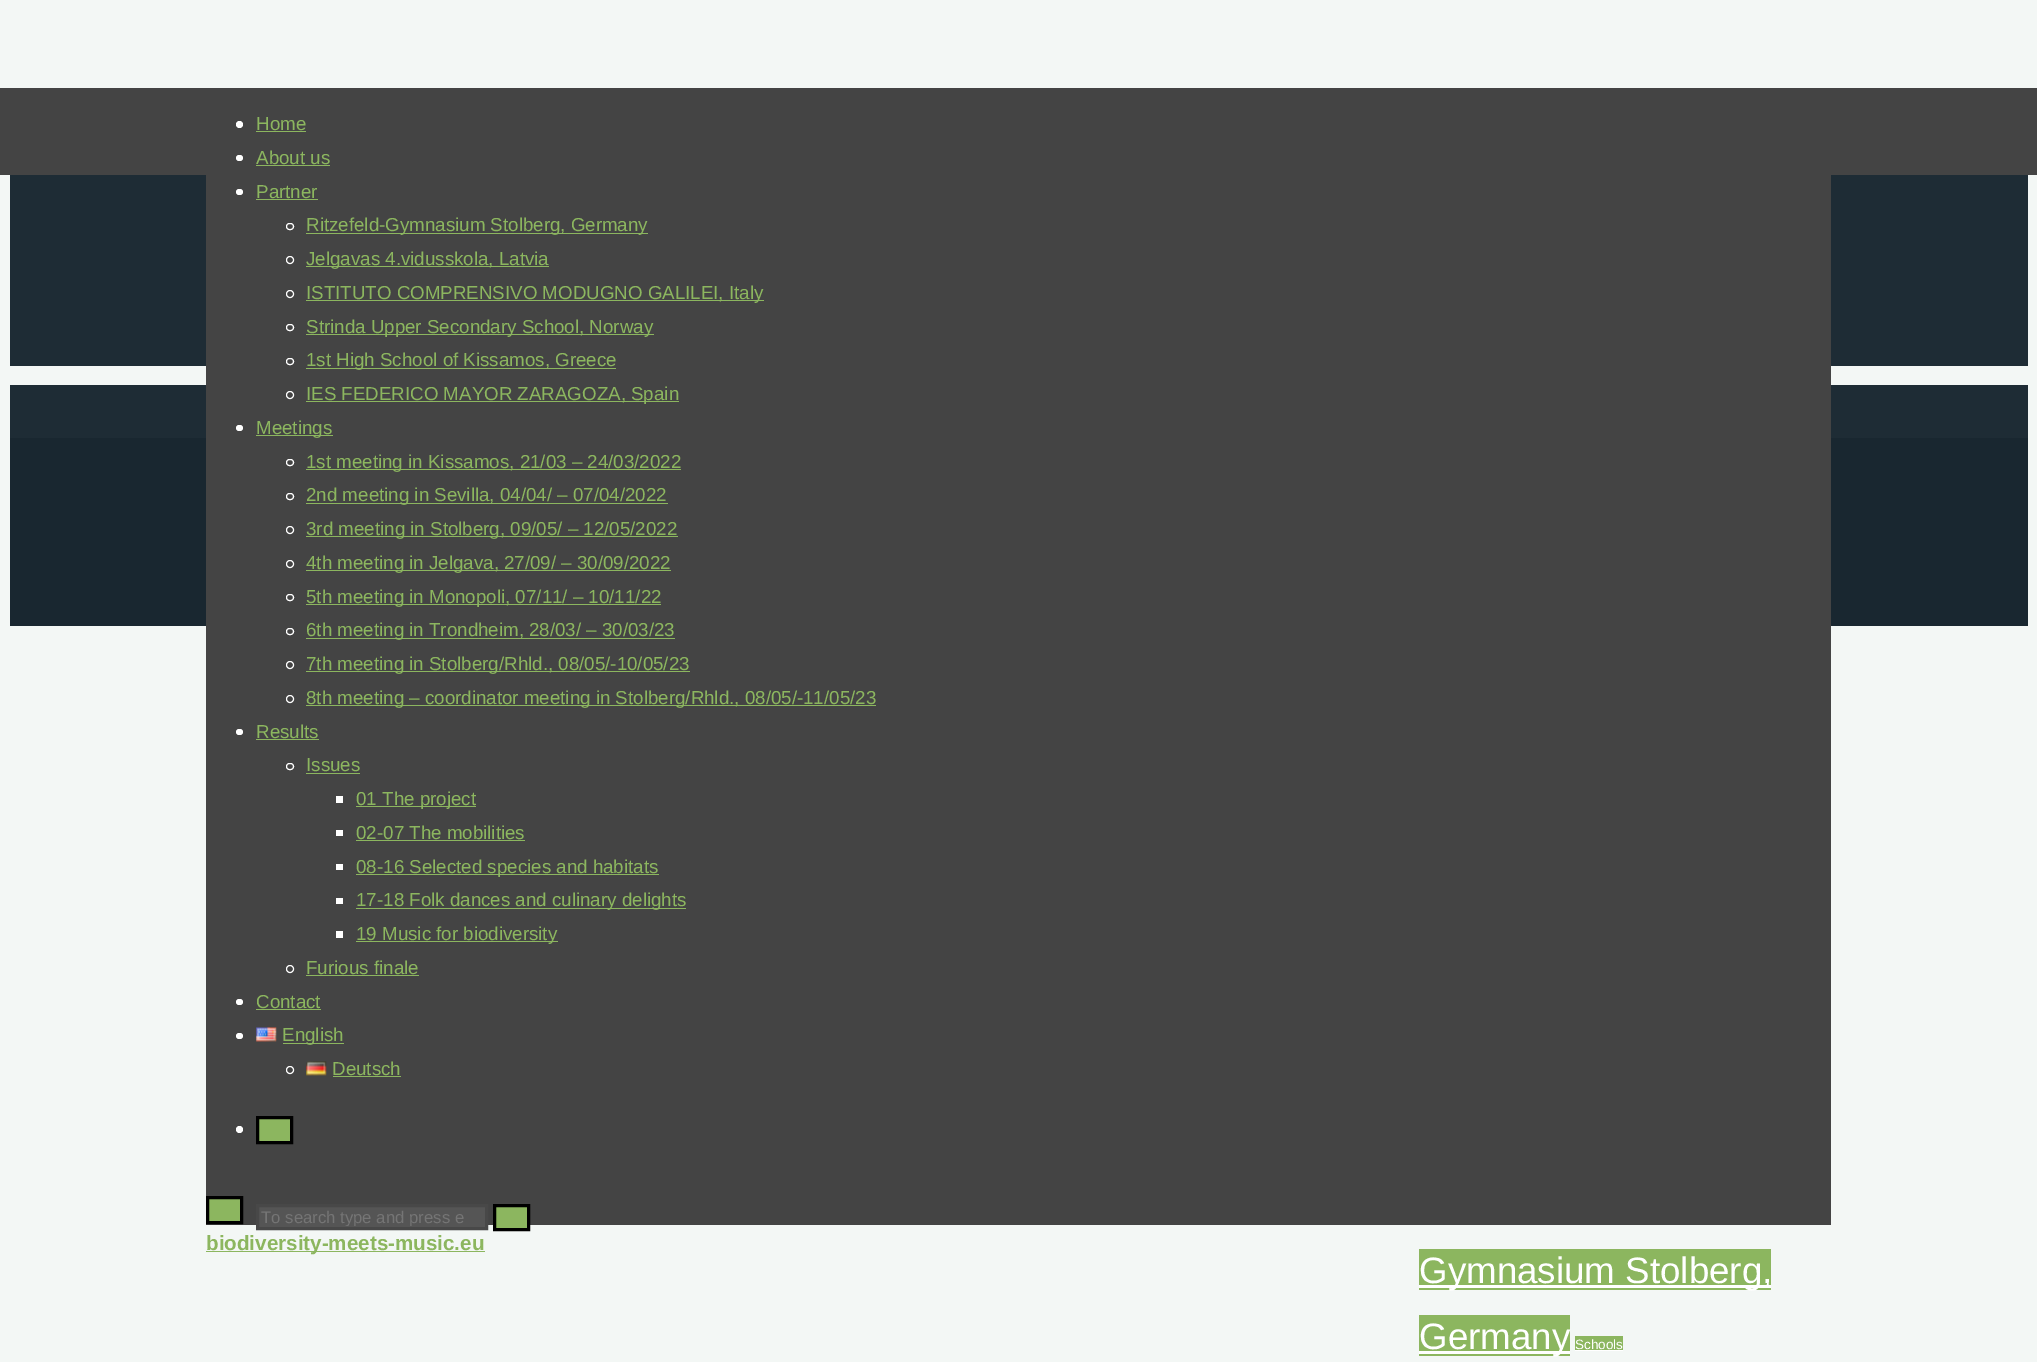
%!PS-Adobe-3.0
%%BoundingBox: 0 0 2037 1362
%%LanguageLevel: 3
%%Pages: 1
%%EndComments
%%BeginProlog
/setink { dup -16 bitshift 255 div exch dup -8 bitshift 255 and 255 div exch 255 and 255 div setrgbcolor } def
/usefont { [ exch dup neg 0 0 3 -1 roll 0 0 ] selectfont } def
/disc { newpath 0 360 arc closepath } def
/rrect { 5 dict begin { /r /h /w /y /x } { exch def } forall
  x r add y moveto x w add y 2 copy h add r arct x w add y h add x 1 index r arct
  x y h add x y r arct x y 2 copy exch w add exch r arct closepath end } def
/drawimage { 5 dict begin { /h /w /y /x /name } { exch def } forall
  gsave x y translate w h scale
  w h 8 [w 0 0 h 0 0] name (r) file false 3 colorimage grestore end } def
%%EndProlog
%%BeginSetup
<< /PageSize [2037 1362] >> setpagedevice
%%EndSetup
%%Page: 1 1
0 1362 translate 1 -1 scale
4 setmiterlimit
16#F3F7F5 setink
0 0 2037 1362 rectfill
[
    [0 88 2037 87 16#444444]
    [10 385 2018 53 16#1E2C35]
    [10 438 2018 188 16#192730]
    [10 175 2018 191 16#1E2C35]
    [206 175 1625 1050 16#444444]
] { aload pop setink rectfill } forall
16#8CB65F setink
207.5 1197.5 moveto 241.5 1197.5 lineto 241.5 1222.5 lineto 207.5 1222.5 lineto closepath gsave fill grestore
16#000000 setink
3 setlinewidth
stroke
16#FFFFFF setink
239.5 124.5 3.5 disc fill
/LiberationSans-Regular 18.75 usefont
16#8CB65F setink
256 130 moveto (Home) show
256 131 50 1 rectfill
16#FFFFFF setink
236 155 7 6 3 rrect fill
16#8CB65F setink
256 164 moveto (About us) show
256 165 74 1 rectfill
16#FFFFFF setink
236 189 7 6 3 rrect fill
16#8CB65F setink
256 198 moveto (Partner) show
256 199 62 1 rectfill
16#FFFFFF setink
1 setlinewidth
286.5 223.5 7 6 3 rrect stroke
16#8CB65F setink
306 233 342 1 rectfill
306 231 moveto (Ritzefeld-Gymnasium Stolberg, Germany) show
16#FFFFFF setink
290 260 3.5 disc stroke
16#8CB65F setink
306 266 243 1 rectfill
306 265 moveto (Jelgavas 4.vidusskola, Latvia) show
16#FFFFFF setink
290 294 3.5 disc stroke
16#8CB65F setink
306 300 458 1 rectfill
306 299 moveto (ISTITUTO COMPRENSIVO MODUGNO GALILEI, Italy) show
16#FFFFFF setink
286.5 324.5 7 6 3 rrect stroke
16#8CB65F setink
306 334 348 1 rectfill
306 333 moveto (Strinda Upper Secondary School, Norway) show
16#FFFFFF setink
286.5 358.5 7 6 3 rrect stroke
16#8CB65F setink
306 368 310 1 rectfill
306 366 moveto (1st High School of Kissamos, Greece) show
16#FFFFFF setink
290 395 3.5 disc stroke
16#8CB65F setink
306 401 373 1 rectfill
306 400 moveto (IES FEDERICO MAYOR ZARAGOZA, Spain) show
16#FFFFFF setink
236 425 7 6 3 rrect fill
16#8CB65F setink
256 435 77 1 rectfill
256 434 moveto (Meetings) show
16#FFFFFF setink
286.5 459.5 7 6 3 rrect stroke
16#8CB65F setink
306 469 375 1 rectfill
306 468 moveto (1st meeting in Kissamos, 21/03 – 24/03/2022) show
16#FFFFFF setink
286.5 493.5 7 6 3 rrect stroke
16#8CB65F setink
306 503 362 1 rectfill
306 501 moveto (2nd meeting in Sevilla, 04/04/ – 07/04/2022) show
16#FFFFFF setink
290 530 3.5 disc stroke
16#8CB65F setink
306 536 372 1 rectfill
306 535 moveto (3rd meeting in Stolberg, 09/05/ – 12/05/2022) show
16#FFFFFF setink
290 564 3.5 disc stroke
16#8CB65F setink
306 570 365 1 rectfill
306 569 moveto (4th meeting in Jelgava, 27/09/ – 30/09/2022) show
16#FFFFFF setink
286.5 594.5 7 6 3 rrect stroke
16#8CB65F setink
306 604 355 1 rectfill
306 603 moveto (5th meeting in Monopoli, 07/11/ – 10/11/22) show
16#FFFFFF setink
286.5 628.5 7 6 3 rrect stroke
16#8CB65F setink
306 638 369 1 rectfill
306 636 moveto (6th meeting in Trondheim, 28/03/ – 30/03/23) show
16#FFFFFF setink
290 665 3.5 disc stroke
16#8CB65F setink
306 671 384 1 rectfill
306 670 moveto (7th meeting in Stolberg/Rhld., 08/05/-10/05/23) show
16#FFFFFF setink
290 699 3.5 disc stroke
16#8CB65F setink
306 705 570 1 rectfill
306 704 moveto (8th meeting – coordinator meeting in Stolberg/Rhld., 08/05/-11/05/23) show
16#FFFFFF setink
236 729 7 6 3 rrect fill
16#8CB65F setink
256 738 moveto (Results) show
256 739 63 1 rectfill
16#FFFFFF setink
286.5 763.5 7 6 3 rrect stroke
16#8CB65F setink
306 771 moveto (Issues) show
[
    [306 773 54 1 16#8CB65F]
    [336 796 7 7 16#FFFFFF]
    [356 806 120 1 16#8CB65F]
] { aload pop setink rectfill } forall
356 805 moveto (01 The project) show
16#FFFFFF setink
336 830 7 6 rectfill
16#8CB65F setink
356 839 moveto (02-07 The mobilities) show
[
    [356 840 169 1 16#8CB65F]
    [336 864 7 6 16#FFFFFF]
    [356 874 303 1 16#8CB65F]
] { aload pop setink rectfill } forall
356 873 moveto (08-16 Selected species and habitats) show
16#FFFFFF setink
336 898 7 6 rectfill
16#8CB65F setink
356 908 330 1 rectfill
356 906 moveto (17-18 Folk dances and culinary delights) show
16#FFFFFF setink
336 931 7 7 rectfill
16#8CB65F setink
356 941 202 1 rectfill
356 940 moveto (19 Music for biodiversity) show
16#FFFFFF setink
290 969 3.5 disc stroke
16#8CB65F setink
306 974 moveto (Furious finale) show
306 975 113 1 rectfill
16#FFFFFF setink
236 999 7 6 3 rrect fill
16#8CB65F setink
256 1008 moveto (Contact) show
256 1009 65 1 rectfill
16#FFFFFF setink
236 1033 7 6 3 rrect fill
(img1.raw) 256 1027 21 15 drawimage
16#8CB65F setink
283 1043 61 1 rectfill
282 1041 moveto (English) show
16#FFFFFF setink
290 1070 3.5 disc stroke
(img2.raw) 306 1061 21 15 drawimage
16#8CB65F setink
332 1075 moveto (Deutsch) show
333 1076 68 1 rectfill
16#FFFFFF setink
239.5 1129.5 3.5 disc fill
16#8CB65F setink
257.5 1117.5 moveto 291.5 1117.5 lineto 291.5 1142.5 lineto 257.5 1142.5 lineto closepath gsave fill grestore
16#000000 setink
3 setlinewidth
stroke
16#555555 setink
257.5 1205.5 moveto 486.5 1205.5 lineto 486.5 1228.5 lineto 257.5 1228.5 lineto closepath gsave fill grestore
16#484848 setink
stroke
gsave
261 1208 205 18 rectclip
/LiberationSans-Regular 16.75 usefont
16#757575 setink
261 1223 moveto (To search type and press e) show
grestore
16#8CB65F setink
494.5 1205.5 moveto 528.5 1205.5 lineto 528.5 1229.5 lineto 494.5 1229.5 lineto closepath gsave fill grestore
16#000000 setink
stroke
16#8CB65F setink
206 1251 279 1 rectfill
/LiberationSans-Bold 20.6 usefont
206 1250 moveto (biodiversity-meets-music.eu) show
1419 1249 352 41 rectfill
16#FFFFFF setink
1419 1285 352 3 rectfill
/LiberationSans-Regular 36.75 usefont
1419 1283 moveto (Gymnasium Stolberg,) show
16#8CB65F setink
1419 1315 151 41 rectfill
16#FFFFFF setink
1419 1351 151 3 rectfill
1419 1349 moveto (Germany) show
16#8CB65F setink
1575 1336 48 14 rectfill
/LiberationSans-Regular 13.5 usefont
16#FFFFFF setink
1575 1349 moveto (Schools) show
1575 1350 48 1 rectfill
showpage
%%EOF
